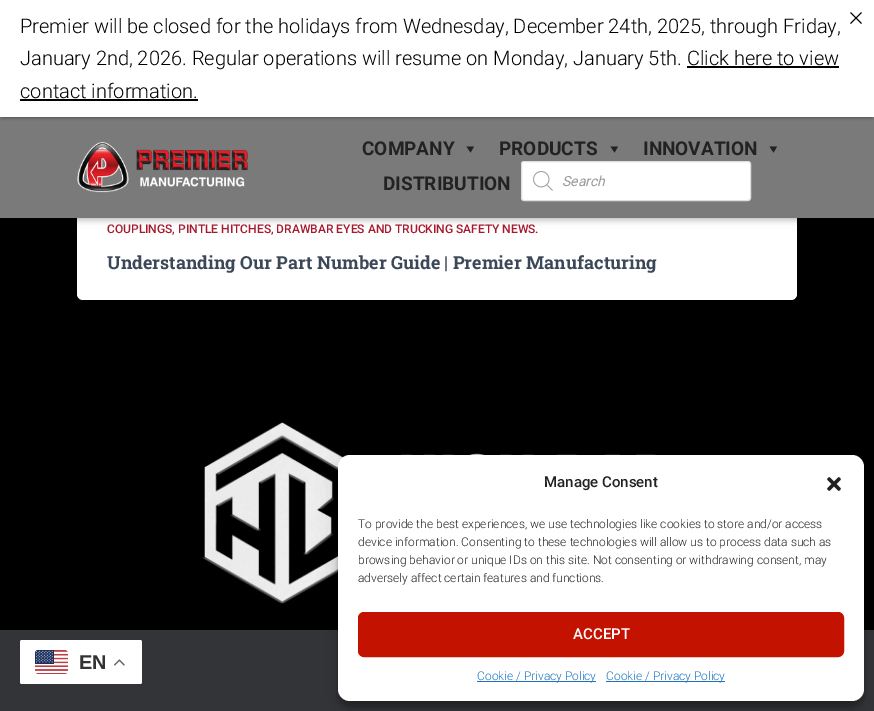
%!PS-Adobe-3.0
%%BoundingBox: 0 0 874 711
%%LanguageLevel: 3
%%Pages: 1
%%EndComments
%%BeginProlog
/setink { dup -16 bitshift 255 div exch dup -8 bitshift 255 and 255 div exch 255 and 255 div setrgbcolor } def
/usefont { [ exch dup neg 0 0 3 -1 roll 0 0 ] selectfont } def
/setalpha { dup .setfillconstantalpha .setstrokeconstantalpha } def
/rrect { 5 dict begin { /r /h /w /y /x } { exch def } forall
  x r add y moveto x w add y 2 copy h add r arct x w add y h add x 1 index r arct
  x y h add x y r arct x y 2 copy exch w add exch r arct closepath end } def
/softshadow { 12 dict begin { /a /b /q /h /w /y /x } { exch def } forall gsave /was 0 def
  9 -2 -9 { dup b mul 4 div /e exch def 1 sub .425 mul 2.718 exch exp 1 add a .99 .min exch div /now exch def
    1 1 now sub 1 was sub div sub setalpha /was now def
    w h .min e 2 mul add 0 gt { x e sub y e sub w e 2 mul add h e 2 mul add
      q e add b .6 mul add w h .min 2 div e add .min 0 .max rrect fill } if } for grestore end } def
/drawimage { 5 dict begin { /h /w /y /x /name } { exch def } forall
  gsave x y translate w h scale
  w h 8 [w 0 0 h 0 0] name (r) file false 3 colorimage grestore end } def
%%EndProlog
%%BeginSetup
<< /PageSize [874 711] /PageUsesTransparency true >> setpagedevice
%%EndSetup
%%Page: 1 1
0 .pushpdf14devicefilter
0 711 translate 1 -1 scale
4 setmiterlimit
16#000000 setink
0 0 874 711 rectfill
16#FFFFFF setink
77 202 720 98 6 rrect fill
16#000000 setink
2 123 870 97 0 2.5 0.1 softshadow
0 118 874 101 0 5 0.12 softshadow
6 124 862 89 0 5 0.42 softshadow
16#7A7A7A setink
0 117 874 101 rectfill
16#000000 setink
2 4 870 113 0 2 0.5 softshadow
16#FFFFFF setink
0 0 874 117 rectfill
/Roboto-Light 20 usefont
16#000000 setink
[
    [(Premier will be closed for the holidays from Wednesday, December 24th, 2025, through Friday,) 20 33]
    [(January 2nd, 2026. Regular operations will resume on Monday, January 5th. Click here to view) 20 65]
    [(contact information.) 20 98]
] { aload pop moveto show } forall
687 66 152 2 rectfill
20 99 178 2 rectfill
(img1.raw) 850 12 12 12 drawimage
(img2.raw) 77 142 171 51 drawimage
/Roboto-Bold 19 usefont
16#222222 setink
362 155 moveto (COMPANY) show
474 146.5 moveto 470.5 152.5 lineto 466.5 146.5 lineto closepath fill
499 155 moveto (PRODUCTS) show
618 146.5 moveto 614.5 152.5 lineto 610.5 146.5 lineto closepath fill
643 155 moveto (INNOVATION) show
777 146.5 moveto 773.5 152.5 lineto 769.5 146.5 lineto closepath fill
383 190 moveto (DISTRIBUTION) show
16#FFFFFF setink
521.5 161.5 229 39 2.5 rrect gsave fill grestore
16#DDDDDD setink
stroke
(img3.raw) 533 171 20 20 drawimage
/Roboto-Italic 14 usefont
16#999999 setink
562 186 moveto (Search) show
/Roboto-Medium 12 usefont
16#A6192E setink
107 233 moveto (COUPLINGS, PINTLE HITCHES, DRAWBAR EYES AND TRUCKING SAFETY NEWS.) show
/RobotoSlab-Bold 18 usefont
16#3C4858 setink
107 269 moveto (Understanding Our Part Number Guide | Premier Manufacturing) show
(img4.raw) 202 422 462 182 drawimage
16#323437 setink
0 630 874 81 rectfill
16#FFFFFF setink
20 640 122 44 2 rrect fill
(img5.raw) 35 650 33 24 drawimage
/LiberationSans-Bold 20 usefont
16#333333 setink
79 669 moveto (EN) show
(img6.raw) 114 659 11 7 drawimage
16#000000 setink
338 461 526 246 12 3 0.23 softshadow
338 465 526 246 12 10 0.19 softshadow
16#FFFFFF setink
338 455 526 246 12 rrect fill
/Roboto-Medium 15 usefont
16#222222 setink
544 487 moveto (Manage Consent) show
(img7.raw) 827 477 14 14 drawimage
/Roboto-Light 12 usefont
[
    [(To provide the best experiences, we use technologies like cookies to store and/or access) 358 528]
    [(device information. Consenting to these technologies will allow us to process data such as) 358 546]
    [(browsing behavior or unique IDs on this site. Not consenting or withdrawing consent, may) 358 564]
    [(adversely affect certain features and functions.) 358 582]
] { aload pop moveto show } forall
16#C41200 setink
358.5 612.5 485 44 5.5 rrect gsave fill grestore
stroke
/Roboto-Medium 15 usefont
16#FFFFFF setink
573 639 moveto (ACCEPT) show
16#1E73BE setink
477 681 119 1 rectfill
/Roboto-Light 12 usefont
477 680 moveto (Cookie / Privacy Policy) show
606 681 119 1 rectfill
606 680 moveto (Cookie / Privacy Policy) show
.poppdf14devicefilter showpage
%%EOF
